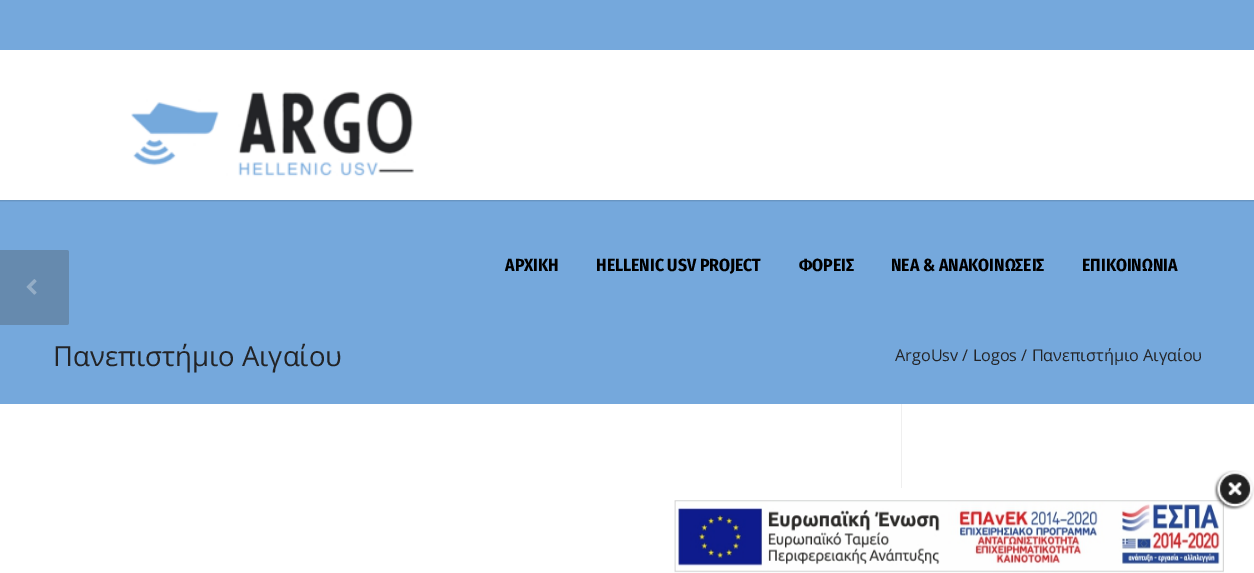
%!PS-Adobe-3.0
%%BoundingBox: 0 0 1254 573
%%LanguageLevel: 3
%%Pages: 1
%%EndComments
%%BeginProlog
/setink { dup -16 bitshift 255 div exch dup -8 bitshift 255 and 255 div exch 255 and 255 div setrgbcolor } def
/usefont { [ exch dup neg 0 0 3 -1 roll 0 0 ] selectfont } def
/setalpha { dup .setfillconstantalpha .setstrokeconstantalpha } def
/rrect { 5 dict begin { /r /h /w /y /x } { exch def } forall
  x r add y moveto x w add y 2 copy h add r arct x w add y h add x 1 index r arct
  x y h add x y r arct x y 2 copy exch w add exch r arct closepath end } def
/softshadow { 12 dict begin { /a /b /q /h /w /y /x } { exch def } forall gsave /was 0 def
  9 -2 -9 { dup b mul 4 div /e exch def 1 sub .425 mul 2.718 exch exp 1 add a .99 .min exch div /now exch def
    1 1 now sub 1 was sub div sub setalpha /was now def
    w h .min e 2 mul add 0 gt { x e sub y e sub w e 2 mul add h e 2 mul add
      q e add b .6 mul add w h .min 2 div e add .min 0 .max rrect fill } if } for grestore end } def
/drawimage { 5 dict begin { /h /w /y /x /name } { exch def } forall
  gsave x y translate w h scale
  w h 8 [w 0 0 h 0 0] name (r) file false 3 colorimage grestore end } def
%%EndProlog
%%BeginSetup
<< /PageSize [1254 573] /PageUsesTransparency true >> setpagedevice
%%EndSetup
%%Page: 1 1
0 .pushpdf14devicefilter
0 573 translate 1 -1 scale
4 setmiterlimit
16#FFFFFF setink
0 0 1254 573 rectfill
16#75A8DC setink
0 200 1254 204 rectfill
gsave
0 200 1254 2 rectclip
16#000000 setink
-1 49 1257 152 0 1 0.16 softshadow
grestore
0 0 1254 50 rectfill
16#EFEFEF setink
901 404 1 84 rectfill
16#668AAE setink
-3 250 moveto 66.5 250 lineto 68 250 69 251 69 252.5 curveto 69 322.5 lineto 69 324 68 325 66.5 325 curveto -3 325 lineto closepath fill
(img1.raw) 26 279 11 16 drawimage
(img2.raw) 131 91 283 86 drawimage
/FiraSansCondensed-Bold 17.5 usefont
16#000000 setink
[
    [(ΑΡΧΙΚΗ) 505 271]
    [(HELLENIC USV PROJECT) 596 271]
    [(ΦΟΡΕΙΣ) 799 271]
    [(ΝΕΑ & ΑΝΑΚΟΙΝΩΣΕΙΣ) 891 271]
    [(ΕΠΙΚΟΙΝΩΝΙΑ) 1082 271]
] { aload pop moveto show } forall
/OpenSans-Regular 27.5 usefont
16#232427 setink
53 366 moveto (Πανεπιστήμιο Αιγαίου) show
/OpenSans-Regular 16.25 usefont
895 361 moveto (ArgoUsv / Logos / Πανεπιστήμιο Αιγαίου) show
(img4.raw) 674 500 550 73 drawimage
(img3.raw) 1214 470 40 40 drawimage
.poppdf14devicefilter showpage
%%EOF
